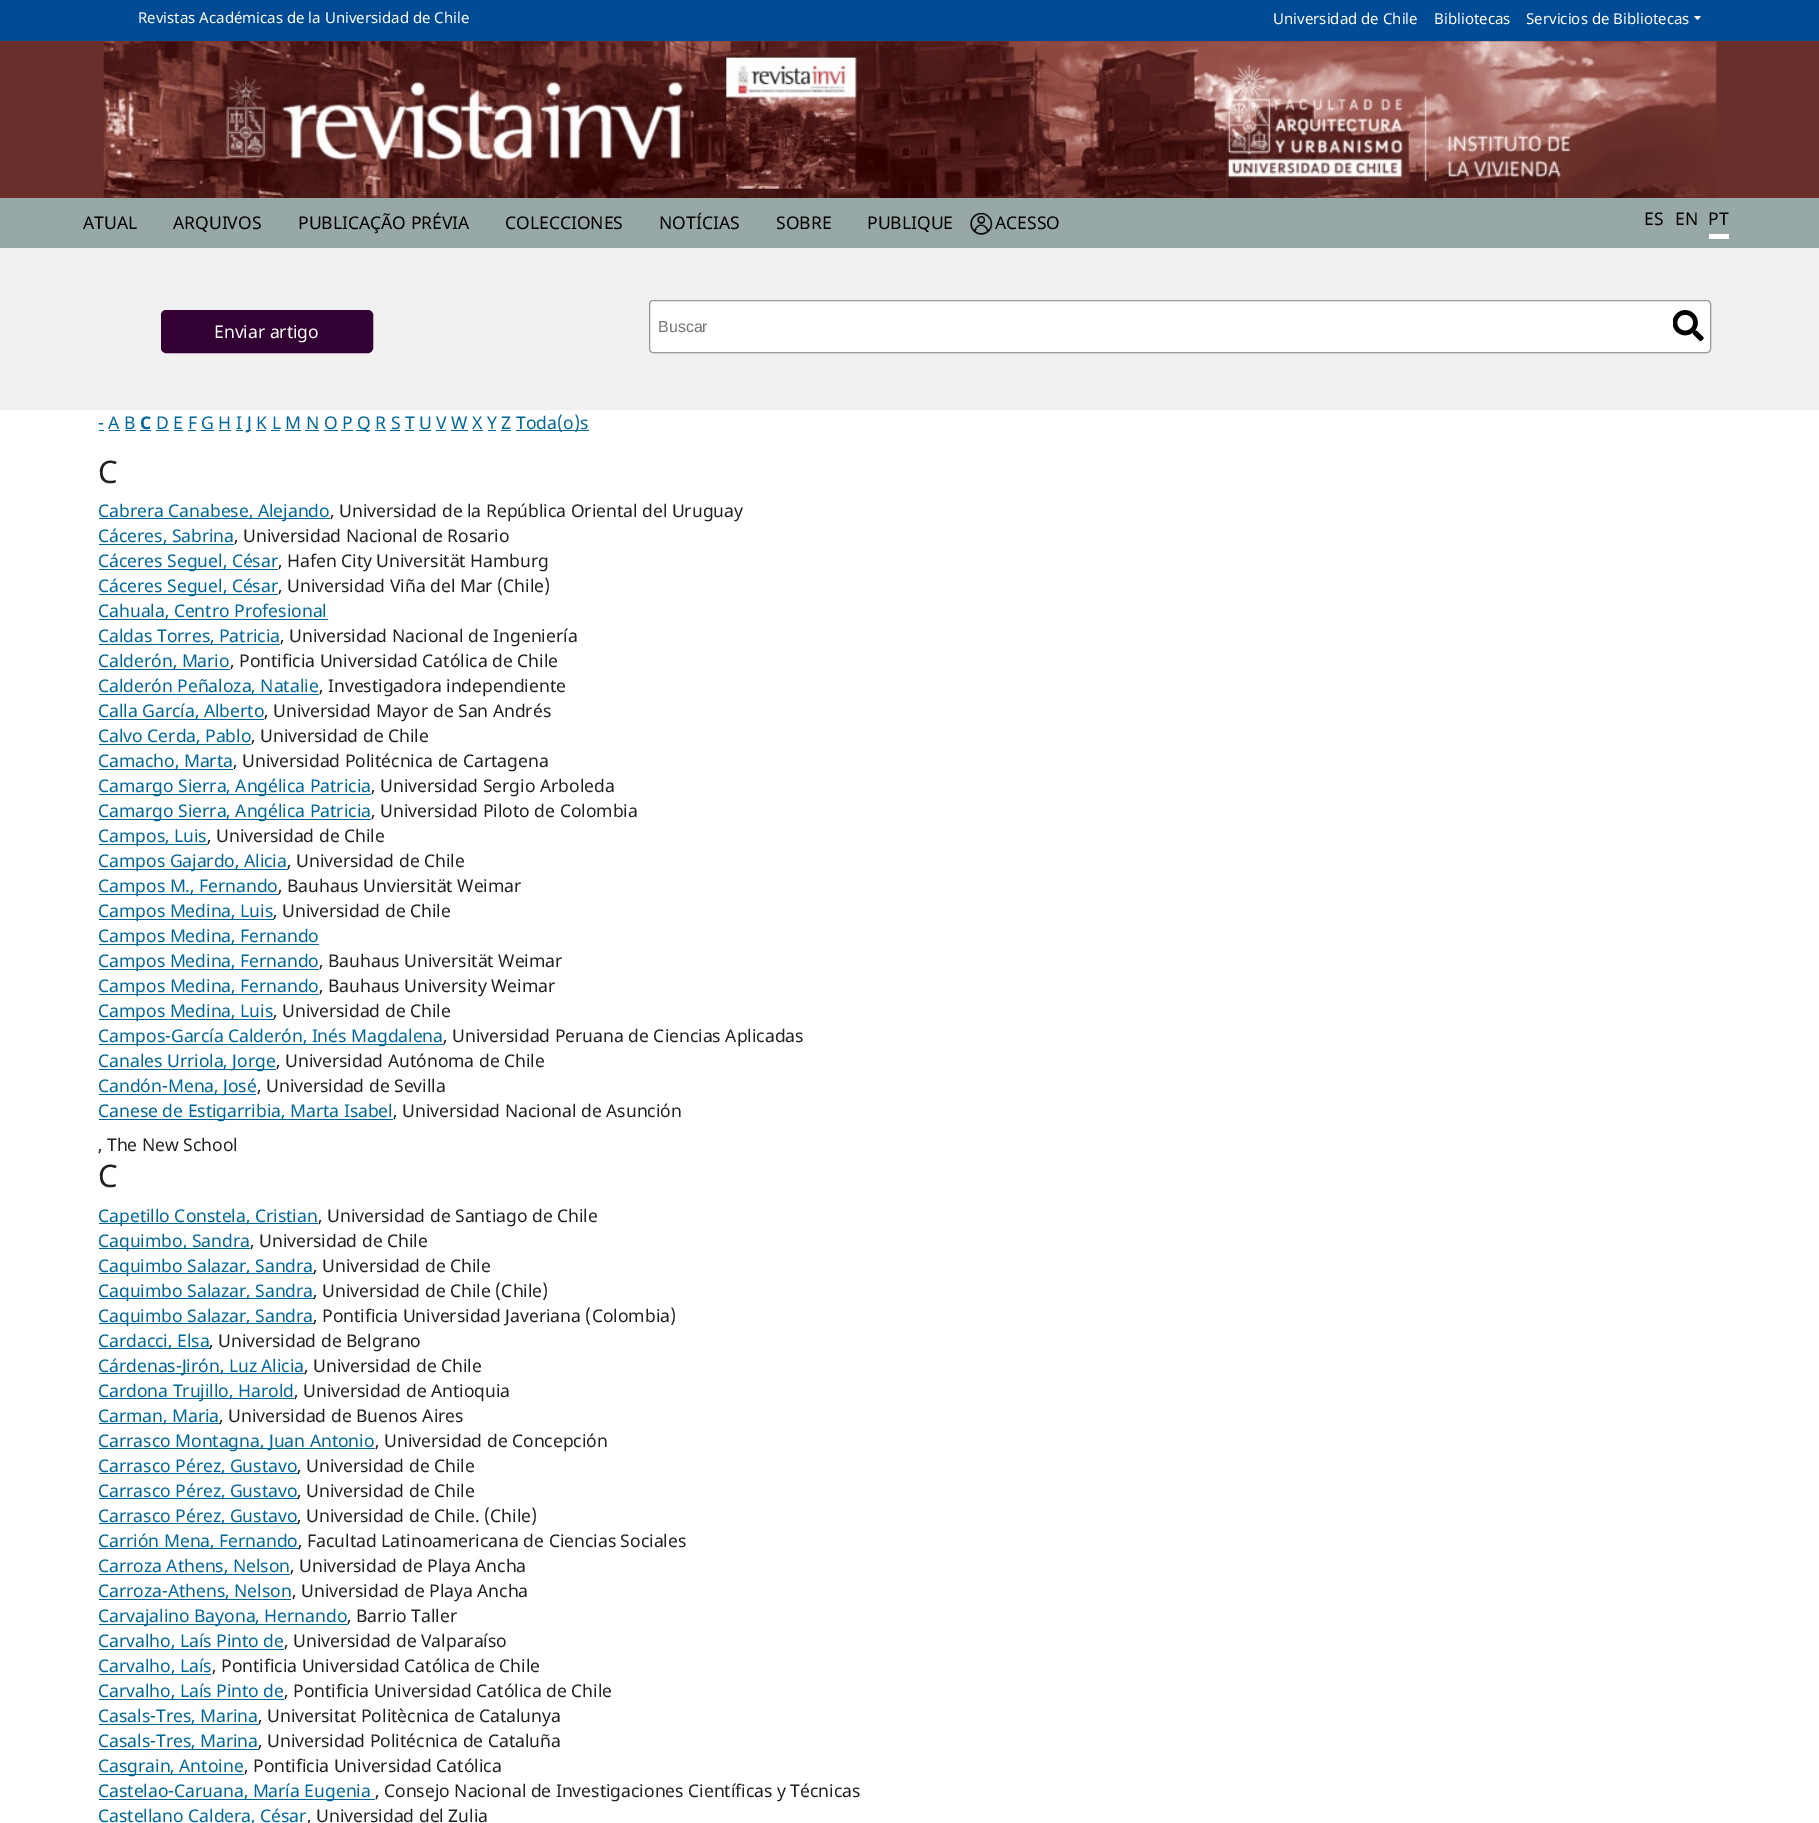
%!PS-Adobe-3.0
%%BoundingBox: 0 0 1819 1823
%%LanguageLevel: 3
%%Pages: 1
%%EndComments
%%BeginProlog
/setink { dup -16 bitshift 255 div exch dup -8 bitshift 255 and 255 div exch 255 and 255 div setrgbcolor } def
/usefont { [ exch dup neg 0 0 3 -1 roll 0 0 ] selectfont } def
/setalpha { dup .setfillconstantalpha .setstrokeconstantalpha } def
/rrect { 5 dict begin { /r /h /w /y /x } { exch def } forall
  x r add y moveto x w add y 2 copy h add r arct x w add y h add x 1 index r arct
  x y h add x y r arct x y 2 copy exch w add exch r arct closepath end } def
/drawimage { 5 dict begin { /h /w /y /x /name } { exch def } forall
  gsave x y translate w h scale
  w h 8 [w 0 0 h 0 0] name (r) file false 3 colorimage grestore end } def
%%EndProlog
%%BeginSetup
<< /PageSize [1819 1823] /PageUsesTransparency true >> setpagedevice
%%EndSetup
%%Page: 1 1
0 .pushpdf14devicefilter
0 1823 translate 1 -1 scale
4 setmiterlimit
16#FFFFFF setink
0 0 1819 1823 rectfill
16#004B93 setink
0 0 1819 41 rectfill
/NotoSans-Regular 15 usefont
16#FFFFFF setink
[
    [(Revistas Académicas de la Universidad de Chile) 138 23]
    [(Universidad de Chile) 1273 24]
    [(Bibliotecas) 1434 24]
    [(Servicios de Bibliotecas) 1526 24]
] { aload pop moveto show } forall
1694 16 moveto 1701 16 lineto 1697.5 20 lineto closepath fill
16#692F2B setink
0 41 1819 157 rectfill
(img1.raw) 103 41 1614 157 drawimage
16#F0F0F0 setink
0 248 1819 162 rectfill
16#97A8A6 setink
0 198 1819 50 rectfill
/NotoSans-Regular 17.5 usefont
16#000000 setink
[
    [(ATUAL) 83 229]
    [(ARQUIVOS) 173 229]
    [(PUBLICAÇÃO PRÉVIA) 298 229]
    [(COLECCIONES) 505 229]
    [(NOTÍCIAS) 659 229]
    [(SOBRE) 776 229]
    [(PUBLIQUE) 867 229]
] { aload pop moveto show } forall
(img2.raw) 970 212 23 23 drawimage
[
    [(ACESSO) 995 229]
    [(ES) 1644 225]
    [(EN) 1675 225]
] { aload pop moveto show } forall
16#FFFFFF setink
1709 234 20 5 rectfill
16#000000 setink
1708 225 moveto (PT) show
16#330033 setink
161.5 310.5 211 42 4.5 rrect gsave fill grestore
stroke
16#FFFFFF setink
214 338 moveto (Enviar artigo) show
649 300 1062 53 4 rrect fill
0.4 setalpha
16#000000 setink
649.5 300.5 1061 52 3.5 rrect stroke
/LiberationSans-Regular 16 usefont
1 setalpha
16#757575 setink
658 332 moveto (Buscar) show
(img3.raw) 1673 310 31 31 drawimage
/NotoSans-Regular 17.5 usefont
16#006798 setink
98 429 moveto (- A B) show
99 430 5 1 rectfill
/NotoSans-Bold 17.5 usefont
140 429 moveto (C) show
140 430 11 1 rectfill
/NotoSans-Regular 17.5 usefont
156 429 moveto (D E F G H I) show
156 430 13 1 rectfill
246 430 5 1 rectfill
247 429 moveto (J K L M N O P) show
356 430 14 1 rectfill
357 429 moveto (Q R S T U V W X Y Z) show
516 430 73 1 rectfill
516 429 moveto (Toda\(o\)s) show
[
    [109 430 11 1 16#006798]
    [125 430 11 1 16#006798]
    [174 430 9 1 16#006798]
    [188 430 8 1 16#006798]
    [201 430 13 1 16#006798]
    [219 430 12 1 16#006798]
    [236 430 7 1 16#006798]
    [256 430 10 1 16#006798]
    [271 430 9 1 16#006798]
    [285 430 16 1 16#006798]
    [305 430 14 1 16#006798]
    [324 430 14 1 16#006798]
    [341 430 12 1 16#006798]
    [375 430 11 1 16#006798]
    [390 430 10 1 16#006798]
    [405 430 9 1 16#006798]
    [419 430 12 1 16#006798]
    [436 430 10 1 16#006798]
    [451 430 17 1 16#006798]
    [473 430 10 1 16#006798]
    [488 430 8 1 16#006798]
    [501 430 10 1 16#006798]
] { aload pop setink rectfill } forall
/NotoSans-Regular 31 usefont
16#212121 setink
98 483 moveto (C) show
16#006798 setink
99 518 231 1 rectfill
/NotoSans-Regular 17.5 usefont
98 517 moveto (Cabrera Canabese, Alejando) show
16#212121 setink
330 517 moveto (, Universidad de la República Oriental del Uruguay) show
16#006798 setink
99 544 135 1 rectfill
98 542 moveto (Cáceres, Sabrina) show
16#212121 setink
234 542 moveto (, Universidad Nacional de Rosario) show
16#006798 setink
99 569 179 1 rectfill
98 567 moveto (Cáceres Seguel, César) show
16#212121 setink
278 567 moveto (, Hafen City Universität Hamburg) show
16#006798 setink
99 594 179 1 rectfill
98 592 moveto (Cáceres Seguel, César) show
16#212121 setink
278 592 moveto (, Universidad Viña del Mar \(Chile\)) show
16#006798 setink
99 619 229 1 rectfill
98 617 moveto (Cahuala, Centro Profesional) show
99 644 181 1 rectfill
98 642 moveto (Caldas Torres, Patricia) show
16#212121 setink
280 642 moveto (, Universidad Nacional de Ingeniería) show
16#006798 setink
99 669 131 1 rectfill
98 667 moveto (Calderón, Mario) show
16#212121 setink
230 667 moveto (, Pontificia Universidad Católica de Chile) show
16#006798 setink
99 694 220 1 rectfill
98 692 moveto (Calderón Peñaloza, Natalie) show
16#212121 setink
319 692 moveto (, Investigadora independiente) show
16#006798 setink
99 719 165 1 rectfill
98 717 moveto (Calla García, Alberto) show
16#212121 setink
264 717 moveto (, Universidad Mayor de San Andrés) show
16#006798 setink
99 744 152 1 rectfill
98 742 moveto (Calvo Cerda, Pablo) show
16#212121 setink
251 742 moveto (, Universidad de Chile) show
16#006798 setink
99 769 134 1 rectfill
98 767 moveto (Camacho, Marta) show
16#212121 setink
233 767 moveto (, Universidad Politécnica de Cartagena) show
16#006798 setink
99 794 272 1 rectfill
98 792 moveto (Camargo Sierra, Angélica Patricia) show
16#212121 setink
371 792 moveto (, Universidad Sergio Arboleda) show
16#006798 setink
99 819 272 1 rectfill
98 817 moveto (Camargo Sierra, Angélica Patricia) show
16#212121 setink
371 817 moveto (, Universidad Piloto de Colombia) show
16#006798 setink
99 844 109 1 rectfill
98 842 moveto (Campos, Luis) show
16#212121 setink
207 842 moveto (, Universidad de Chile) show
16#006798 setink
99 869 189 1 rectfill
98 867 moveto (Campos Gajardo, Alicia) show
16#212121 setink
287 867 moveto (, Universidad de Chile) show
16#006798 setink
99 894 180 1 rectfill
98 892 moveto (Campos M., Fernando) show
16#212121 setink
278 892 moveto (, Bauhaus Unviersität Weimar) show
16#006798 setink
99 919 175 1 rectfill
98 917 moveto (Campos Medina, Luis) show
16#212121 setink
273 917 moveto (, Universidad de Chile) show
16#006798 setink
99 944 220 1 rectfill
98 942 moveto (Campos Medina, Fernando) show
99 969 220 1 rectfill
98 967 moveto (Campos Medina, Fernando) show
16#212121 setink
319 967 moveto (, Bauhaus Universität Weimar) show
16#006798 setink
99 994 220 1 rectfill
98 992 moveto (Campos Medina, Fernando) show
16#212121 setink
319 992 moveto (, Bauhaus University Weimar) show
16#006798 setink
99 1019 175 1 rectfill
98 1017 moveto (Campos Medina, Luis) show
16#212121 setink
273 1017 moveto (, Universidad de Chile) show
16#006798 setink
99 1044 345 1 rectfill
98 1042 moveto (Campos-García Calderón, Inés Magdalena) show
16#212121 setink
443 1042 moveto (, Universidad Peruana de Ciencias Aplicadas) show
16#006798 setink
99 1069 177 1 rectfill
98 1067 moveto (Canales Urriola, Jorge) show
16#212121 setink
276 1067 moveto (, Universidad Autónoma de Chile) show
16#006798 setink
99 1094 157 1 rectfill
98 1092 moveto (Candón-Mena, José) show
16#212121 setink
257 1092 moveto (, Universidad de Sevilla) show
16#006798 setink
99 1119 294 1 rectfill
98 1117 moveto (Canese de Estigarribia, Marta Isabel) show
16#212121 setink
393 1117 moveto (, Universidad Nacional de Asunción) show
98 1151 moveto (, The New School) show
/NotoSans-Regular 31 usefont
98 1187 moveto (C) show
16#006798 setink
99 1223 219 1 rectfill
/NotoSans-Regular 17.5 usefont
98 1222 moveto (Capetillo Constela, Cristian) show
16#212121 setink
318 1222 moveto (, Universidad de Santiago de Chile) show
16#006798 setink
99 1248 151 1 rectfill
98 1247 moveto (Caquimbo, Sandra) show
16#212121 setink
250 1247 moveto (, Universidad de Chile) show
16#006798 setink
99 1273 215 1 rectfill
98 1272 moveto (Caquimbo Salazar, Sandra) show
16#212121 setink
313 1272 moveto (, Universidad de Chile) show
16#006798 setink
99 1298 215 1 rectfill
98 1297 moveto (Caquimbo Salazar, Sandra) show
16#212121 setink
313 1297 moveto (, Universidad de Chile \(Chile\)) show
16#006798 setink
99 1323 215 1 rectfill
98 1322 moveto (Caquimbo Salazar, Sandra) show
16#212121 setink
313 1322 moveto (, Pontificia Universidad Javeriana \(Colombia\)) show
16#006798 setink
99 1348 111 1 rectfill
98 1347 moveto (Cardacci, Elsa) show
16#212121 setink
209 1347 moveto (, Universidad de Belgrano) show
16#006798 setink
99 1373 206 1 rectfill
98 1372 moveto (Cárdenas-Jirón, Luz Alicia) show
16#212121 setink
304 1372 moveto (, Universidad de Chile) show
16#006798 setink
99 1398 195 1 rectfill
98 1397 moveto (Cardona Trujillo, Harold) show
16#212121 setink
294 1397 moveto (, Universidad de Antioquia) show
16#006798 setink
99 1423 121 1 rectfill
98 1422 moveto (Carman, Maria) show
16#212121 setink
219 1422 moveto (, Universidad de Buenos Aires) show
16#006798 setink
99 1448 276 1 rectfill
98 1447 moveto (Carrasco Montagna, Juan Antonio) show
16#212121 setink
375 1447 moveto (, Universidad de Concepción) show
16#006798 setink
99 1473 199 1 rectfill
98 1472 moveto (Carrasco Pérez, Gustavo) show
16#212121 setink
297 1472 moveto (, Universidad de Chile) show
16#006798 setink
99 1498 199 1 rectfill
98 1497 moveto (Carrasco Pérez, Gustavo) show
16#212121 setink
297 1497 moveto (, Universidad de Chile) show
16#006798 setink
99 1523 199 1 rectfill
98 1522 moveto (Carrasco Pérez, Gustavo) show
16#212121 setink
297 1522 moveto (, Universidad de Chile. \(Chile\)) show
16#006798 setink
99 1548 200 1 rectfill
98 1547 moveto (Carrión Mena, Fernando) show
16#212121 setink
298 1547 moveto (, Facultad Latinoamericana de Ciencias Sociales) show
16#006798 setink
99 1574 191 1 rectfill
98 1572 moveto (Carroza Athens, Nelson) show
16#212121 setink
290 1572 moveto (, Universidad de Playa Ancha) show
16#006798 setink
99 1599 192 1 rectfill
98 1597 moveto (Carroza-Athens, Nelson) show
16#212121 setink
292 1597 moveto (, Universidad de Playa Ancha) show
16#006798 setink
99 1624 249 1 rectfill
98 1622 moveto (Carvajalino Bayona, Hernando) show
16#212121 setink
347 1622 moveto (, Barrio Taller) show
16#006798 setink
99 1649 185 1 rectfill
98 1647 moveto (Carvalho, Laís Pinto de) show
16#212121 setink
284 1647 moveto (, Universidad de Valparaíso) show
16#006798 setink
99 1674 112 1 rectfill
98 1672 moveto (Carvalho, Laís) show
16#212121 setink
212 1672 moveto (, Pontificia Universidad Católica de Chile) show
16#006798 setink
99 1699 185 1 rectfill
98 1697 moveto (Carvalho, Laís Pinto de) show
16#212121 setink
284 1697 moveto (, Pontificia Universidad Católica de Chile) show
16#006798 setink
99 1724 160 1 rectfill
98 1722 moveto (Casals-Tres, Marina) show
16#212121 setink
258 1722 moveto (, Universitat Politècnica de Catalunya) show
16#006798 setink
99 1749 160 1 rectfill
98 1747 moveto (Casals-Tres, Marina) show
16#212121 setink
258 1747 moveto (, Universidad Politécnica de Cataluña) show
16#006798 setink
99 1774 145 1 rectfill
98 1772 moveto (Casgrain, Antoine) show
16#212121 setink
244 1772 moveto (, Pontificia Universidad Católica) show
16#006798 setink
99 1799 276 1 rectfill
98 1797 moveto (Castelao-Caruana, María Eugenia) show
16#212121 setink
375 1797 moveto (, Consejo Nacional de Investigaciones Científicas y Técnicas) show
16#006798 setink
98 1822 moveto (Castellano Caldera, César) show
16#212121 setink
307 1822 moveto (, Universidad del Zulia) show
.poppdf14devicefilter showpage
%%EOF
